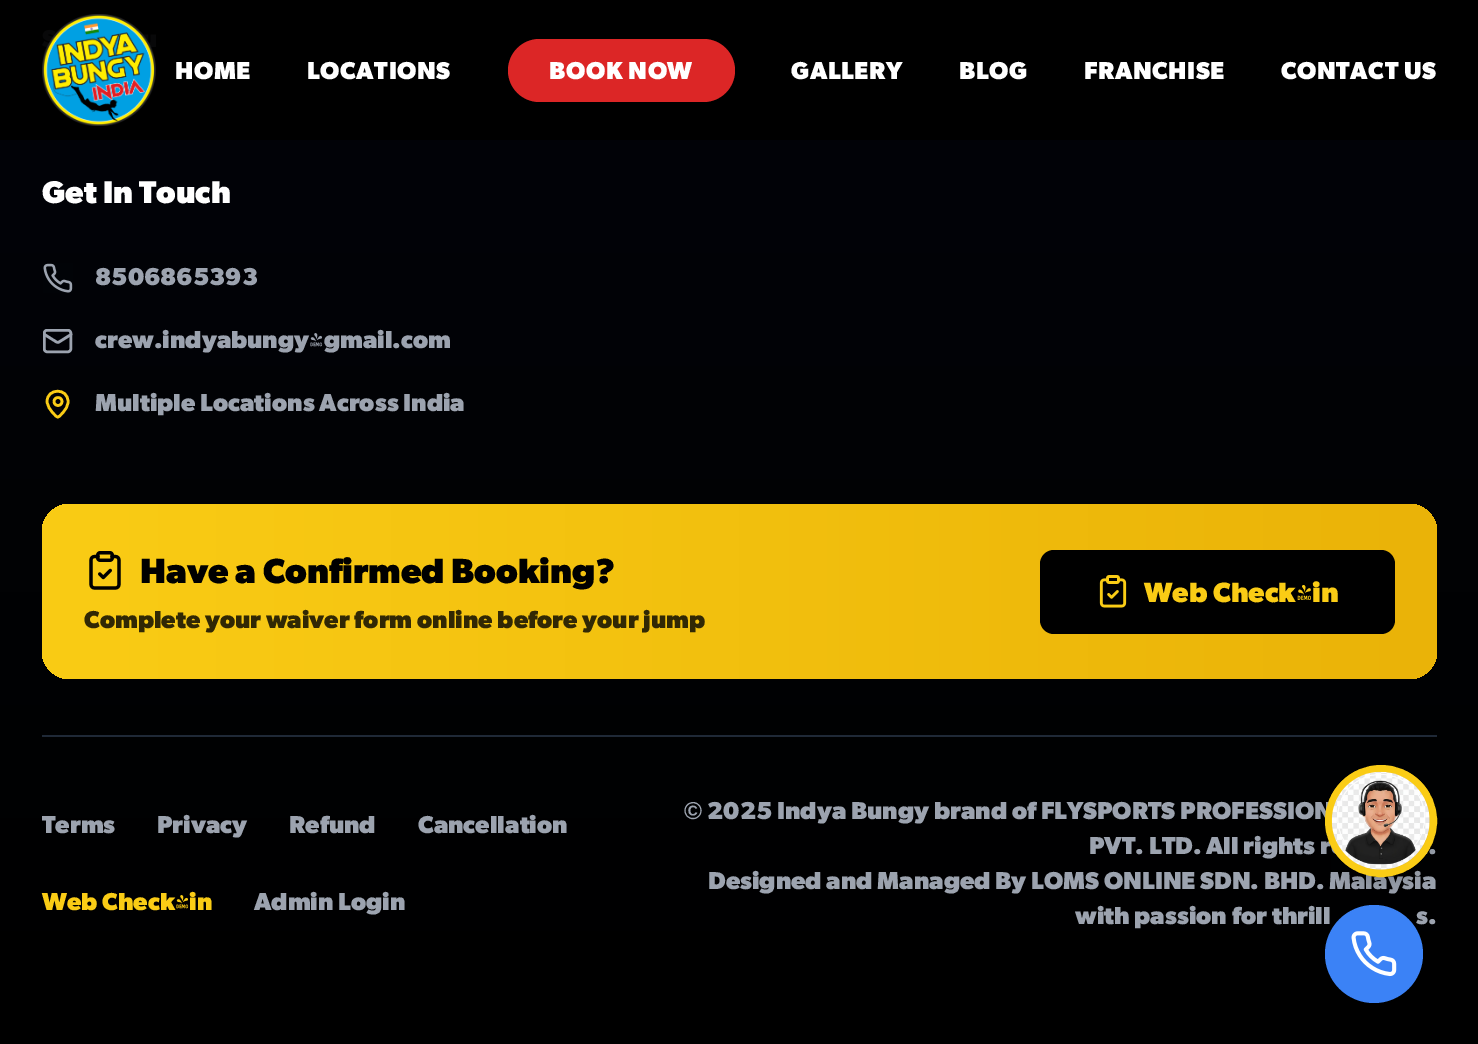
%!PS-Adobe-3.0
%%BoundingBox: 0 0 1478 1044
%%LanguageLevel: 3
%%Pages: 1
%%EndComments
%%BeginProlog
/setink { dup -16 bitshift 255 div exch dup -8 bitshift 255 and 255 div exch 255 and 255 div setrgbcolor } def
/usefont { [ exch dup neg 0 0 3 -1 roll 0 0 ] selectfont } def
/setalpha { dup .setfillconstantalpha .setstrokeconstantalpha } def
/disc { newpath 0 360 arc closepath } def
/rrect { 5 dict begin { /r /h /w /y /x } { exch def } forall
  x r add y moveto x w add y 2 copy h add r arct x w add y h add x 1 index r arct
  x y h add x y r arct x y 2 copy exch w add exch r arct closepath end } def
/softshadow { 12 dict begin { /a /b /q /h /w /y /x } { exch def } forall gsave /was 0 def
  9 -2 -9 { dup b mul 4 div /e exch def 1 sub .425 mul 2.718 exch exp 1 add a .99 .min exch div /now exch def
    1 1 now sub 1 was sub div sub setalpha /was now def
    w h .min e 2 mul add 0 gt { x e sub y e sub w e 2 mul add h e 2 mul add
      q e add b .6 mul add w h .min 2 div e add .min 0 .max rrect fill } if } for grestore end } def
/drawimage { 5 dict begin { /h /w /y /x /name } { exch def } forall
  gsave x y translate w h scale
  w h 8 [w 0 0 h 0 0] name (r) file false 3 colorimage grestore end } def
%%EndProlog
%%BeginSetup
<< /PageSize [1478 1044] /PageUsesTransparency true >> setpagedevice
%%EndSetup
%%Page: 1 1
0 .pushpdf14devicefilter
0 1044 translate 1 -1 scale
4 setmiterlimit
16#FFFFFF setink
0 0 1478 1044 rectfill
gsave 0 0 moveto 1478 0 lineto 1478 140 lineto 0 140 lineto closepath clip newpath
<< /ShadingType 2 /ColorSpace /DeviceRGB /Coords [739 -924 739 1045] /Extend [true true] /Function << /FunctionType 2 /Domain [0 1] /C0 [0 0 0.004] /C1 [0 0 0] /N 1 >> >> shfill grestore
(img1.raw) 42 14 114 112 drawimage
/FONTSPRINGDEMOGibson-Bold 24.5 usefont
175 79 moveto 0.6 0 (HOME) ashow
307 79 moveto 0.6 0 (LOCATIONS) ashow
16#DC2626 setink
508 39 227 63 31.5 rrect fill
16#FFFFFF setink
549 79 moveto 0.6 0 (BOOK NOW) ashow
791 79 moveto 0.6 0 (GALLERY) ashow
959 79 moveto 0.6 0 (BLOG) ashow
1084 79 moveto 0.6 0 (FRANCHISE) ashow
1281 79 moveto 0.6 0 (CONTACT US) ashow
gsave 0 140 moveto 1478 140 lineto 1478 1044 lineto 0 1044 lineto closepath clip newpath
<< /ShadingType 2 /ColorSpace /DeviceRGB /Coords [739 -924 739 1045] /Extend [true true] /Function << /FunctionType 2 /Domain [0 1] /C0 [0.012 0.027 0.071] /C1 [0 0 0] /N 1 >> >> shfill grestore
/FONTSPRINGDEMOGibson-Bold 31.5 usefont
42 203 moveto (Get In Touch) show
(img2.raw) 43 263 30 30 drawimage
/FONTSPRINGDEMOGibson-Bold 24.5 usefont
16#9CA3AF setink
95 285 moveto (8506865393) show
2.6 setlinewidth
1 setlinecap
1 setlinejoin
71 334.5 moveto 59 342 lineto 58.5 342.5 57.5 342.5 56.5 342 curveto 44.5 334.5 lineto stroke
2.5 setlinewidth
0 setlinecap
0 setlinejoin
44.25 330.25 26.5 21.5 2.75 rrect stroke
95 348 moveto (crew.indyabungy@gmail.com) show
16#FACC15 setink
2.6 setlinewidth
1 setlinecap
1 setlinejoin
68 401.5 moveto 68 406 65.5 410 62.5 413 curveto 57.5 418.5 58 418.5 53 413 curveto 50 410 47.5 406 47 401.5 curveto 47 388 68 387.5 68 401.5 curveto stroke
0 setlinecap
0 setlinejoin
58 401.5 4 disc stroke
16#9CA3AF setink
95 411 moveto (Multiple Locations Across India) show
gsave 42 504 1395 175 28 rrect clip newpath
<< /ShadingType 2 /ColorSpace /DeviceRGB /Coords [42 592 1437 592] /Extend [true true] /Function << /FunctionType 2 /Domain [0 1] /C0 [0.98 0.8 0.082] /C1 [0.918 0.702 0.031] /N 1 >> >> shfill grestore
(img3.raw) 89 551 32 39 drawimage
/FONTSPRINGDEMOGibson-Bold 35 usefont
16#000000 setink
140 583 moveto (Have a Confirmed Booking?) show
/FONTSPRINGDEMOGibson-Bold 24.5 usefont
16#312804 setink
84 628 moveto (Complete your waiver form online before your jump) show
16#000000 setink
1040 550 355 84 14 rrect fill
(img4.raw) 1099 575 28 33 drawimage
/FONTSPRINGDEMOGibson-Bold 28 usefont
16#FACC15 setink
1144 602 moveto (Web Check-in) show
16#1F2937 setink
42 735 1395 2 rectfill
/FONTSPRINGDEMOGibson-Bold 24.5 usefont
16#9CA3AF setink
[
    [(Terms) 42 833]
    [(Privacy) 157 833]
    [(Refund) 289 833]
    [(Cancellation) 418 833]
] { aload pop moveto show } forall
16#FACC15 setink
42 910 moveto (Web Check-in) show
16#9CA3AF setink
254 910 moveto (Admin Login) show
/LiberationSans-Bold 24.5 usefont
684 819 moveto (©) show
/FONTSPRINGDEMOGibson-Bold 24.5 usefont
[
    [(2025 Indya Bungy brand of FLYSPORTS PROFESSION) 707 819]
    [(PVT. LTD. All rights r) 1089 854]
    [(.) 1428 854]
    [(Designed and Managed By LOMS ONLINE SDN. BHD. Malaysia) 708 889]
    [(with passion for thrill) 1075 924]
    [(s.) 1416 924]
] { aload pop moveto show } forall
16#000000 setink
1332 779 98 98 49 5 0.1 softshadow
1330 788 102 101 50.5 13 0.1 softshadow
16#EAB308 setink
1381 821 52.5 disc gsave fill grestore
16#FACC15 setink
7 setlinewidth
stroke
(img5.raw) 1331 771 99 99 drawimage
16#3B82F6 setink
1374 954 49 disc fill
(img6.raw) 1351 931 46 46 drawimage
.poppdf14devicefilter showpage
%%EOF
